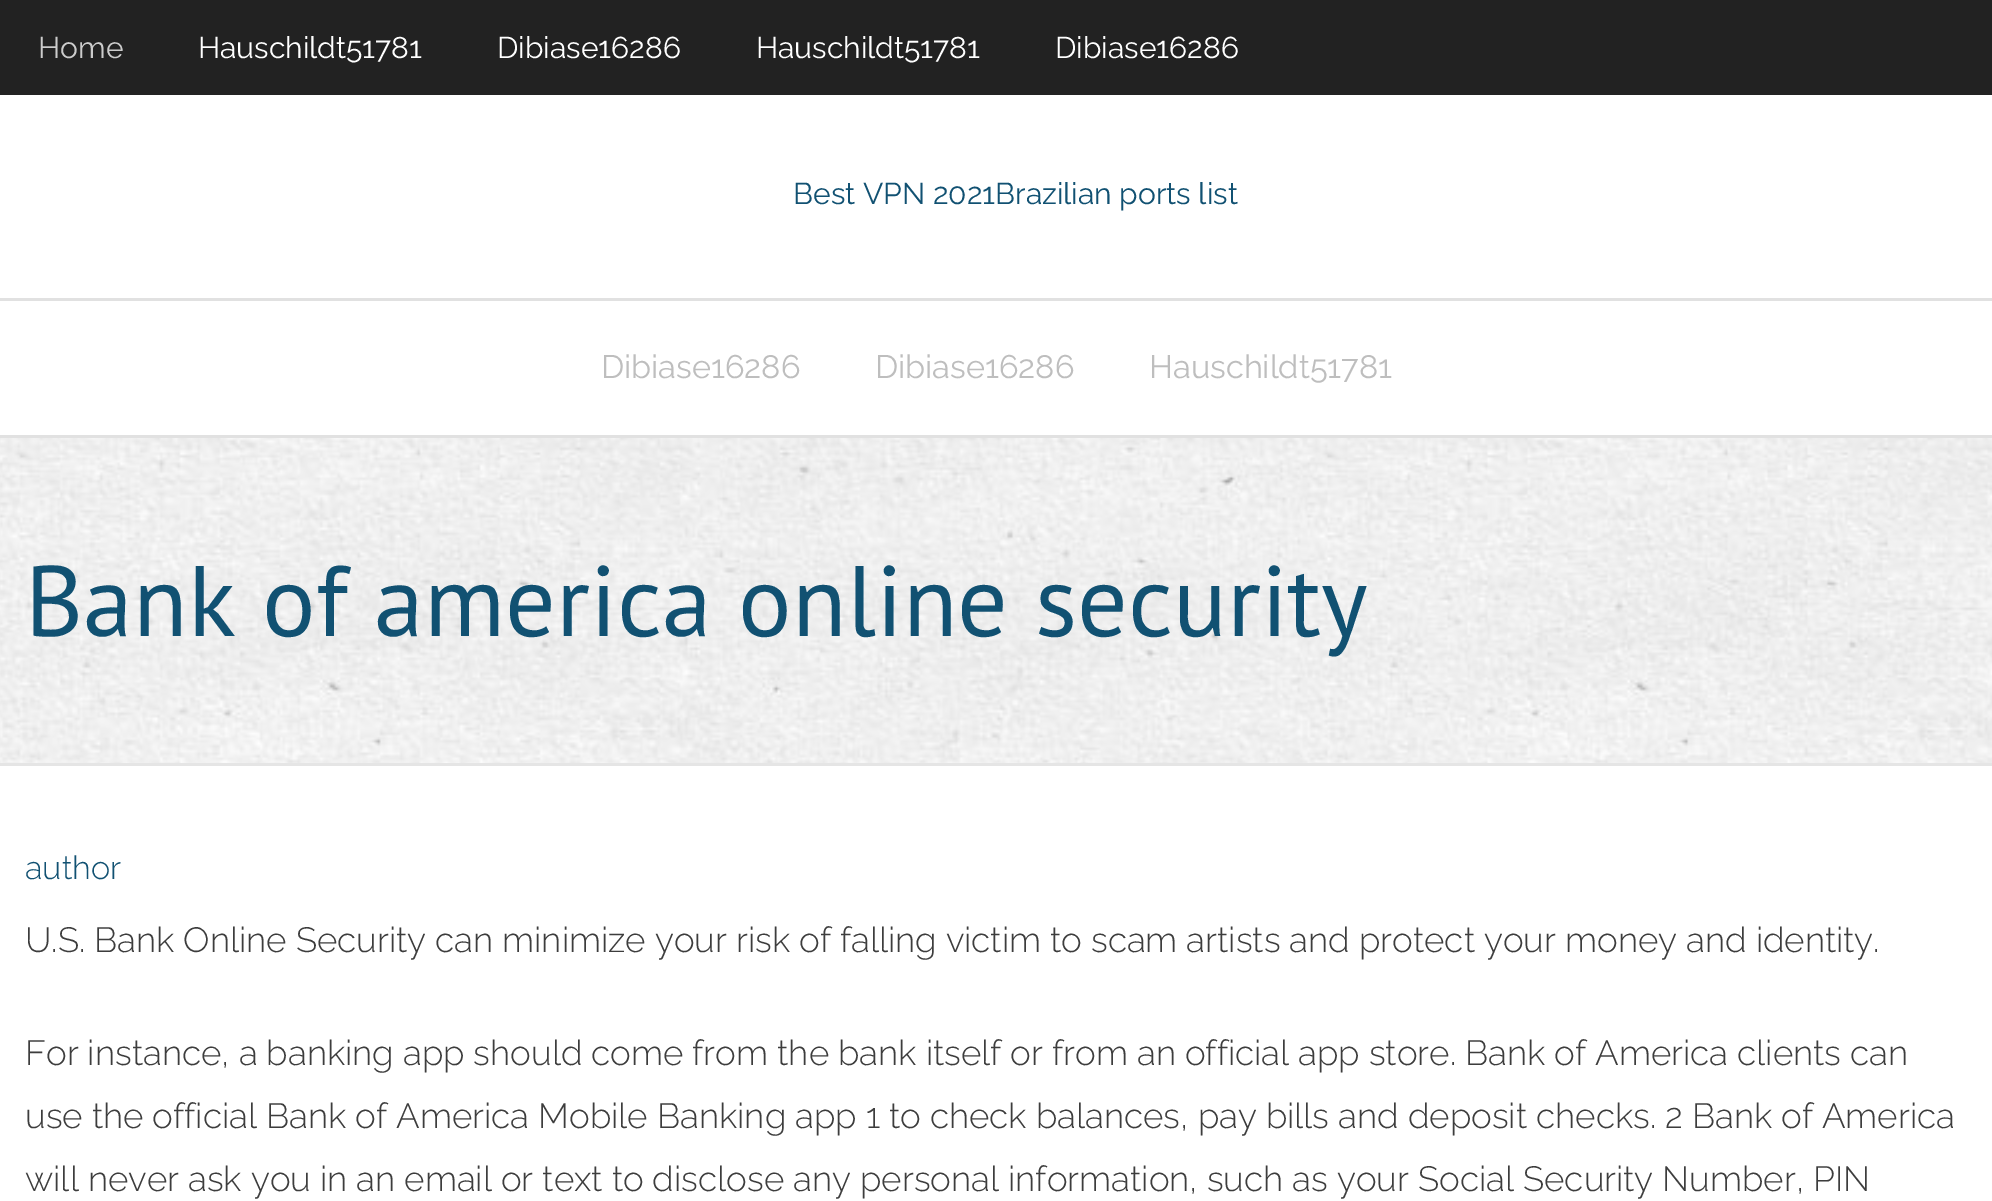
%!PS-Adobe-3.0
%%BoundingBox: 0 0 1992 1201
%%LanguageLevel: 3
%%Pages: 1
%%EndComments
%%BeginProlog
/setink { dup -16 bitshift 255 div exch dup -8 bitshift 255 and 255 div exch 255 and 255 div setrgbcolor } def
/usefont { [ exch dup neg 0 0 3 -1 roll 0 0 ] selectfont } def
/drawimage { 5 dict begin { /h /w /y /x /name } { exch def } forall
  gsave x y translate w h scale
  w h 8 [w 0 0 h 0 0] name (r) file false 3 colorimage grestore end } def
%%EndProlog
%%BeginSetup
<< /PageSize [1992 1201] >> setpagedevice
%%EndSetup
%%Page: 1 1
0 1201 translate 1 -1 scale
4 setmiterlimit
16#FFFFFF setink
0 0 1992 1201 rectfill
16#222222 setink
0 0 1992 95 rectfill
/Raleway-Regular 30 usefont
16#CCCCCC setink
38 58 moveto (Home) show
16#FFFFFF setink
[
    [(Hauschildt51781) 198 58]
    [(Dibiase16286) 497 58]
    [(Hauschildt51781) 756 58]
    [(Dibiase16286) 1055 58]
] { aload pop moveto show } forall
16#115172 setink
793 204 moveto (Best VPN 2021Brazilian ports list) show
16#E1E1E1 setink
0 298 1992 3 rectfill
0 435 1992 3 rectfill
/Raleway-Regular 32.5 usefont
16#BEBEBE setink
[
    [(Dibiase16286) 601 378]
    [(Dibiase16286) 875 378]
    [(Hauschildt51781) 1149 378]
] { aload pop moveto show } forall
(img1.raw) 0 438 1992 325 drawimage
16#E5E5E5 setink
0 763 1992 3 rectfill
/PTSans-Regular 100 usefont
16#115172 setink
25 636 moveto (Bank of america online security) show
/Raleway-Light 32.5 usefont
25 879 moveto (author) show
/Raleway-Light 35 usefont
16#3D3D3D setink
[
    [(U.S. Bank Online Security can minimize your risk of falling victim to scam artists and protect your money and identity.) 25 952]
    [(For instance, a banking app should come from the bank itself or from an official app store. Bank of America clients can) 25 1065]
    [(use the official Bank of America Mobile Banking app 1 to check balances, pay bills and deposit checks. 2 Bank of America) 25 1128]
    [(will never ask you in an email or text to disclose any personal information, such as your Social Security Number, PIN) 25 1191]
] { aload pop moveto show } forall
showpage
%%EOF
